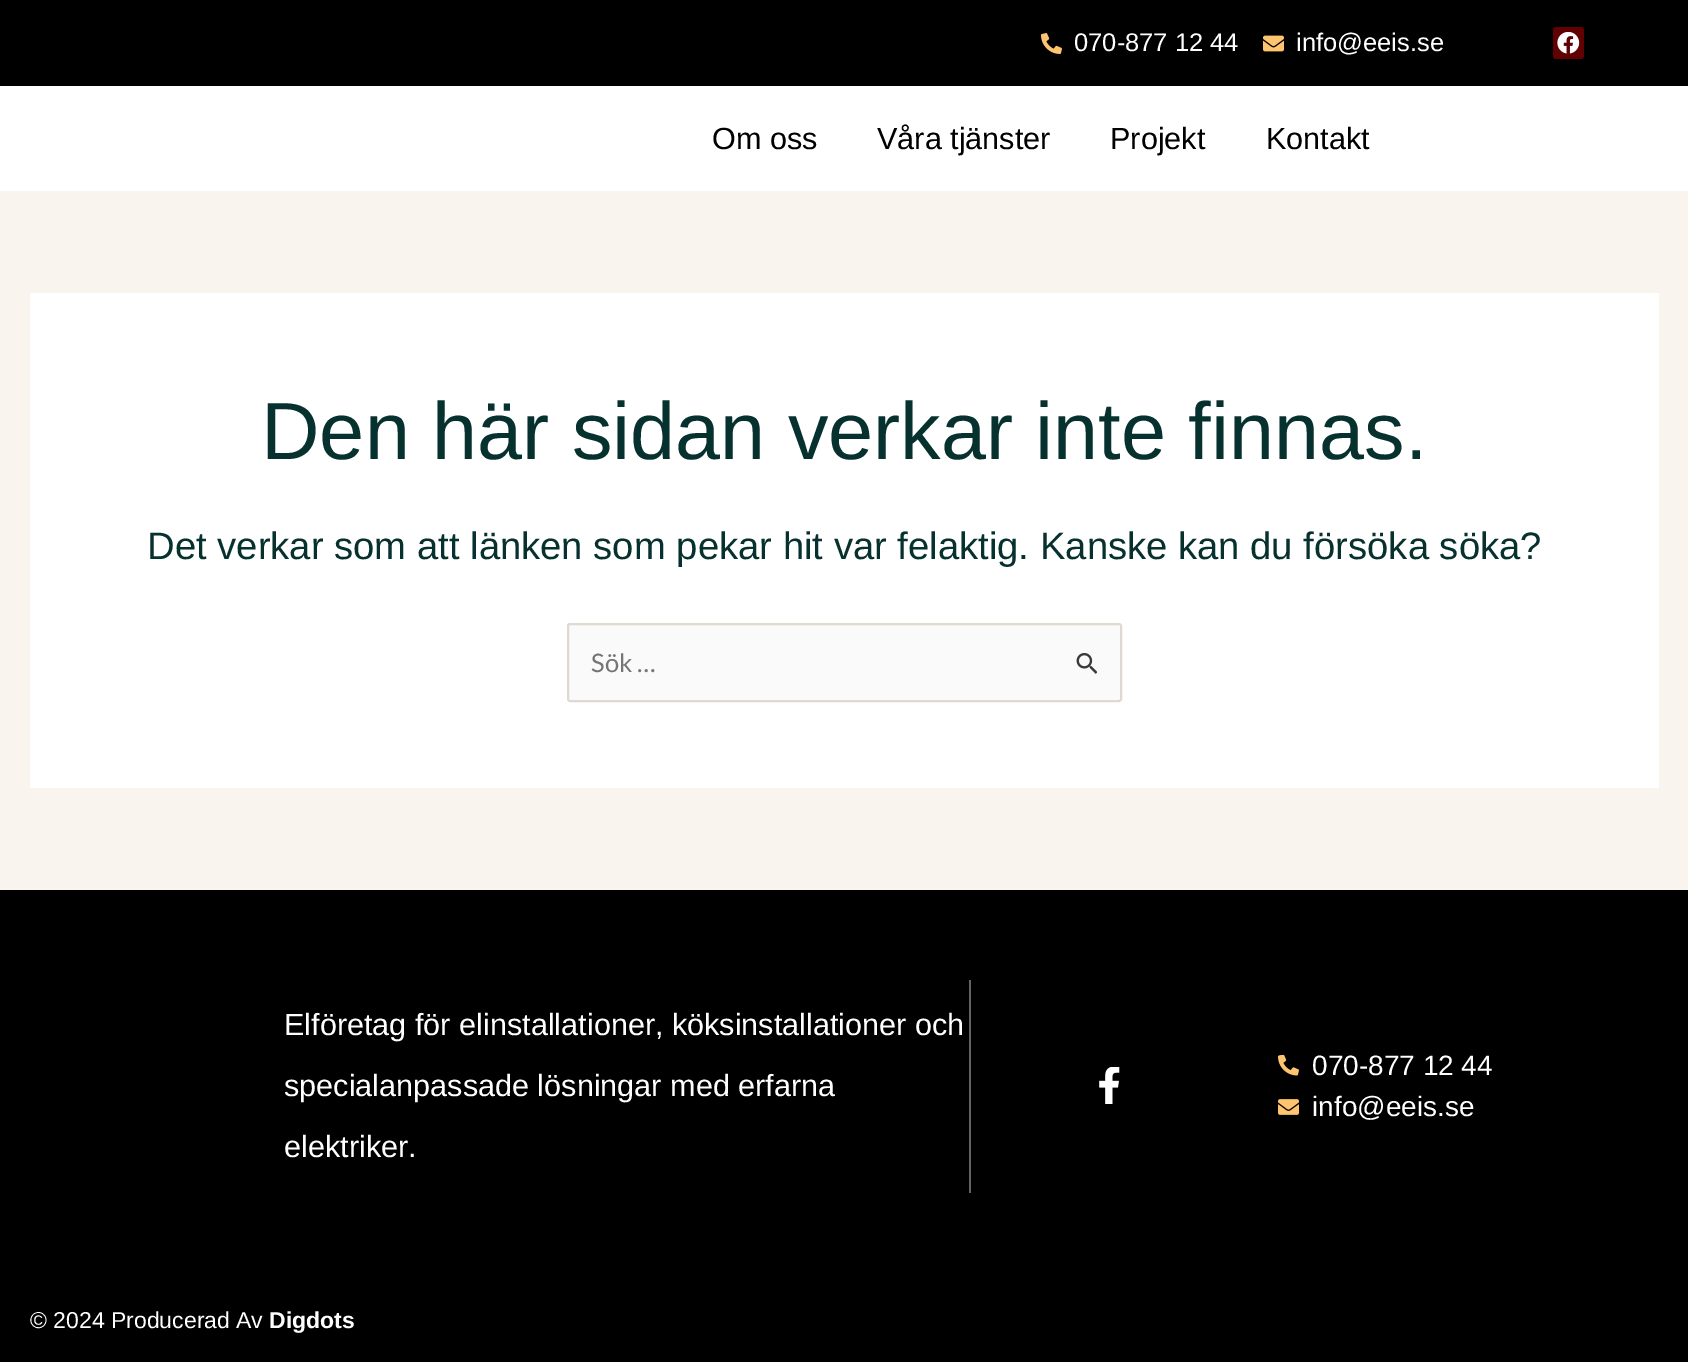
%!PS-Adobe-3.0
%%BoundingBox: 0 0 1688 1362
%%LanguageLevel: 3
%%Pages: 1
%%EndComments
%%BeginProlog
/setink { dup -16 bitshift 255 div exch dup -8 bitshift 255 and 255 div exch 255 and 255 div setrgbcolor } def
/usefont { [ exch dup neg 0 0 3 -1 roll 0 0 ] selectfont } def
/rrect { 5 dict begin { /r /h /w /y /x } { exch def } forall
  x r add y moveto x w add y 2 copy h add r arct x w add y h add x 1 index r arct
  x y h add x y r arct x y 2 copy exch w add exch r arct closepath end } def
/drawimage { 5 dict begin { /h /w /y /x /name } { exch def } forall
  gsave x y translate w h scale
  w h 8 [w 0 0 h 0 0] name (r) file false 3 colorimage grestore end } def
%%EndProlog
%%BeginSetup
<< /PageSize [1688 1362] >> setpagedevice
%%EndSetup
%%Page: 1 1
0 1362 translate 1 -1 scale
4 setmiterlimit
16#F9F5EE setink
0 0 1688 1362 rectfill
16#000000 setink
0 0 1688 86 rectfill
(img1.raw) 1041 33 21 21 drawimage
/LiberationSans-Regular 25.5 usefont
16#FFFFFF setink
1074 51 moveto (070-877 12 44) show
(img2.raw) 1263 35 21 17 drawimage
1296 51 moveto (info@eeis.se) show
16#620101 setink
1553 27 31 32 3 rrect fill
(img3.raw) 1557 32 23 22 drawimage
16#FFFFFF setink
0 86 1688 105 rectfill
/LiberationSans-Regular 30.6 usefont
16#000000 setink
[
    [(Om oss) 712 149]
    [(Våra tjänster) 877 149]
    [(Projekt) 1110 149]
    [(Kontakt) 1266 149]
] { aload pop moveto show } forall
16#FFFFFF setink
30 293 1629 495 rectfill
/LiberationSans-Regular 81 usefont
16#07312E setink
261 459 moveto (Den här sidan verkar inte finnas.) show
/LiberationSans-Regular 38.25 usefont
147 559 moveto (Det verkar som att länken som pekar hit var felaktig. Kanske kan du försöka söka?) show
16#FAFAFA setink
568 624 553 77 2 rrect gsave fill grestore
16#DFD9CF setink
2 setlinewidth
stroke
/Lato-Regular 25.5 usefont
16#757575 setink
591 672 moveto (Sök …) show
(img4.raw) 1076 653 21 21 drawimage
16#000000 setink
0 890 1688 472 rectfill
16#636363 setink
969 980 2 213 rectfill
/LiberationSans-Regular 30.6 usefont
16#FFFFFF setink
[
    [(Elföretag för elinstallationer, köksinstallationer och) 284 1035]
    [(specialanpassade lösningar med erfarna) 284 1096]
    [(elektriker.) 284 1157]
] { aload pop moveto show } forall
(img5.raw) 1099 1067 21 37 drawimage
(img6.raw) 1278 1055 21 21 drawimage
/LiberationSans-Regular 28 usefont
1312 1075 moveto (070-877 12 44) show
(img7.raw) 1278 1099 21 16 drawimage
1312 1116 moveto (info@eeis.se) show
/LiberationSans-Regular 23 usefont
30 1328 moveto (© 2024 Producerad Av) show
/LiberationSans-Bold 23 usefont
269 1328 moveto (Digdots) show
showpage
%%EOF
